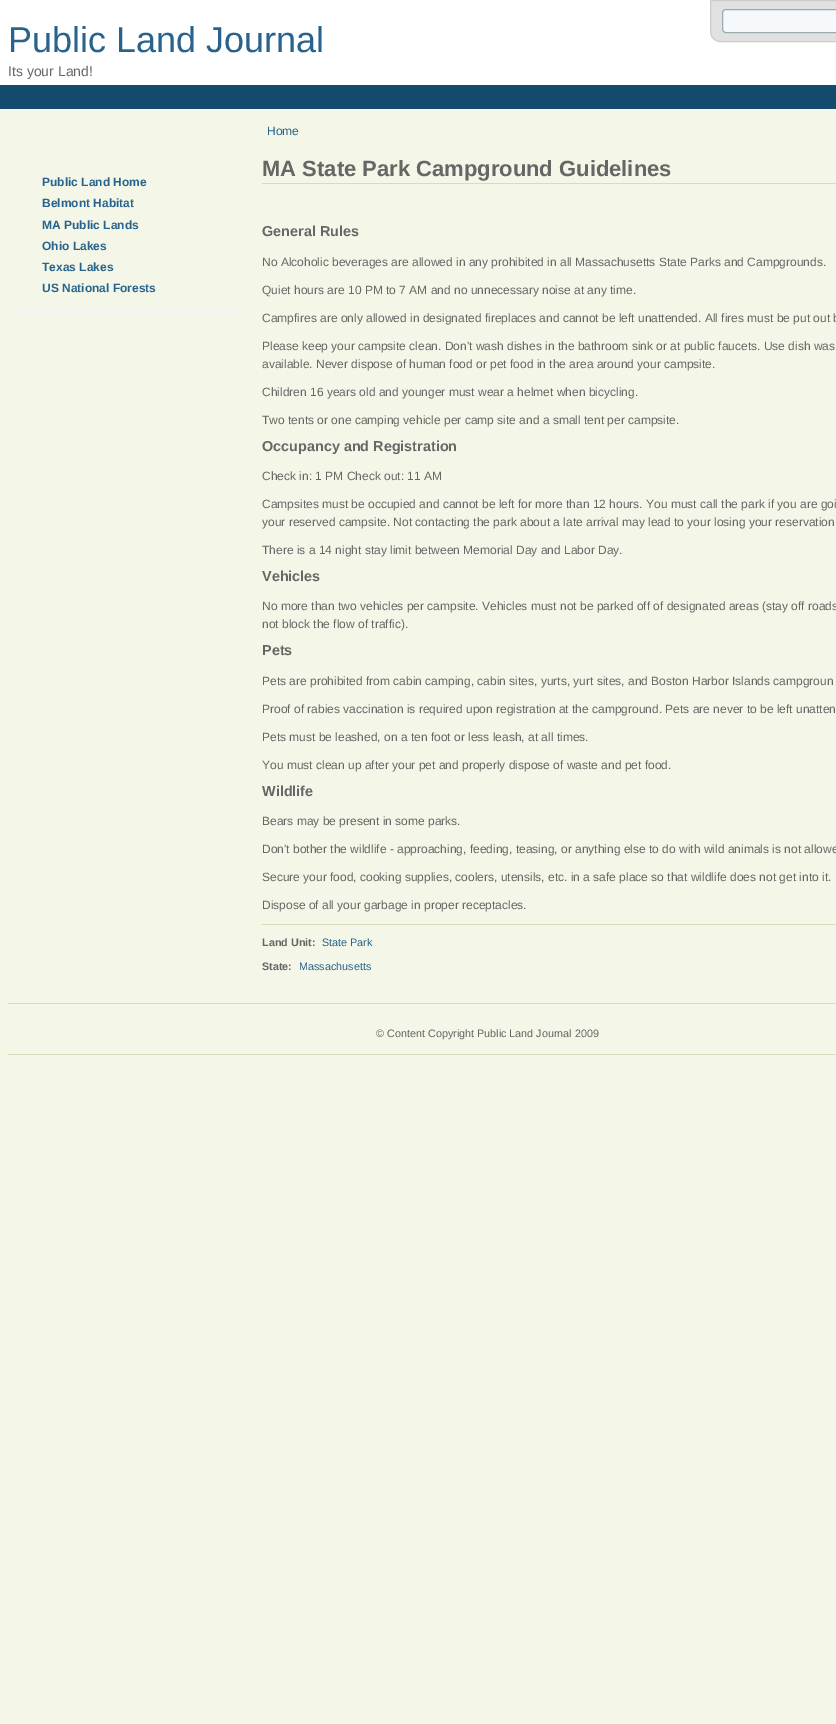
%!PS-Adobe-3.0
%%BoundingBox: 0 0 836 1724
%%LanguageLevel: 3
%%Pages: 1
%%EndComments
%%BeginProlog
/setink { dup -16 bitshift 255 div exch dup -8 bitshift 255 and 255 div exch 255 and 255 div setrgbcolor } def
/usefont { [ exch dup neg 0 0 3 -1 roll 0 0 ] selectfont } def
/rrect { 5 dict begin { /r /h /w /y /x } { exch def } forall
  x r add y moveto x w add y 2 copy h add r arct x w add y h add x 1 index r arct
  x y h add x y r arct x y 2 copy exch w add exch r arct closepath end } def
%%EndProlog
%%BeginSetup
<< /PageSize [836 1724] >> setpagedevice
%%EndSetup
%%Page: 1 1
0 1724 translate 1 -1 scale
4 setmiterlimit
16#F4F7E7 setink
0 0 836 1724 rectfill
16#FFFFFF setink
0 0 836 85 rectfill
/LiberationSans-Regular 36 usefont
16#27638C setink
8 52 moveto (Public Land Journal) show
/LiberationSans-Regular 14 usefont
16#666666 setink
8 76 moveto (Its your Land!) show
16#E1E1E1 setink
710.5 0.5 moveto 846.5 0.5 lineto 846.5 32 lineto 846.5 37 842 41.5 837 41.5 curveto 720 41.5 lineto 715 41.5 710.5 37 710.5 32 curveto closepath gsave fill grestore
16#CCCCCC setink
stroke
16#F6F9FB setink
722.5 9.5 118 23 3.5 rrect gsave fill grestore
16#9BABB0 setink
stroke
16#144A6E setink
0 85 836 24 rectfill
/LiberationSans-Regular 12 usefont
16#27638C setink
267 135 moveto (Home) show
16#F1F5F7 setink
18 309 220 3 rectfill
/LiberationSans-Bold 12 usefont
16#27638C setink
[
    [(Public Land Home) 42 186]
    [(Belmont Habitat) 42 207]
    [(MA Public Lands) 42 229]
    [(Ohio Lakes) 42 250]
    [(Texas Lakes) 42 271]
    [(US National Forests) 42 292]
] { aload pop moveto show } forall
16#D6DDB9 setink
262 183 574 1 rectfill
/LiberationSans-Bold 22 usefont
16#666666 setink
262 176 moveto (MA State Park Campground Guidelines) show
16#D6DDB9 setink
262 924 574 1 rectfill
/LiberationSans-Bold 14.4 usefont
16#666666 setink
262 236 moveto (General Rules) show
/LiberationSans-Regular 12 usefont
[
    [(No Alcoholic beverages are allowed in any prohibited in all Massachusetts State Parks and Campgrounds.) 262 266]
    [(Quiet hours are 10 PM to 7 AM and no unnecessary noise at any time.) 262 294]
    [(Campfires are only allowed in designated fireplaces and cannot be left unattended. All fires must be put out b) 262 322]
    [(Please keep your campsite clean. Don't wash dishes in the bathroom sink or at public faucets. Use dish was) 262 350]
    [(available. Never dispose of human food or pet food in the area around your campsite.) 262 368]
    [(Children 16 years old and younger must wear a helmet when bicycling.) 262 396]
    [(Two tents or one camping vehicle per camp site and a small tent per campsite.) 262 424]
] { aload pop moveto show } forall
/LiberationSans-Bold 14.4 usefont
262 451 moveto (Occupancy and Registration) show
/LiberationSans-Regular 12 usefont
[
    [(Check in: 1 PM Check out: 11 AM) 262 480]
    [(Campsites must be occupied and cannot be left for more than 12 hours. You must call the park if you are goi) 262 508]
    [(your reserved campsite. Not contacting the park about a late arrival may lead to your losing your reservation) 262 526]
    [(There is a 14 night stay limit between Memorial Day and Labor Day.) 262 554]
] { aload pop moveto show } forall
/LiberationSans-Bold 14.4 usefont
262 581 moveto (Vehicles) show
/LiberationSans-Regular 12 usefont
262 610 moveto (No more than two vehicles per campsite. Vehicles must not be parked off of designated areas \(stay off roads) show
262 628 moveto (not block the flow of traffic\).) show
/LiberationSans-Bold 14.4 usefont
262 655 moveto (Pets) show
/LiberationSans-Regular 12 usefont
[
    [(Pets are prohibited from cabin camping, cabin sites, yurts, yurt sites, and Boston Harbor Islands campgroun) 262 685]
    [(Proof of rabies vaccination is required upon registration at the campground. Pets are never to be left unatten) 262 713]
    [(Pets must be leashed, on a ten foot or less leash, at all times.) 262 741]
    [(You must clean up after your pet and properly dispose of waste and pet food.) 262 769]
] { aload pop moveto show } forall
/LiberationSans-Bold 14.4 usefont
262 796 moveto (Wildlife) show
/LiberationSans-Regular 12 usefont
[
    [(Bears may be present in some parks.) 262 825]
    [(Don't bother the wildlife - approaching, feeding, teasing, or anything else to do with wild animals is not allowe) 262 853]
    [(Secure your food, cooking supplies, coolers, utensils, etc. in a safe place so that wildlife does not get into it.) 262 881]
    [(Dispose of all your garbage in proper receptacles.) 262 909]
] { aload pop moveto show } forall
/LiberationSans-Bold 10.8 usefont
262 946 moveto (Land Unit:) show
/LiberationSans-Regular 10.8 usefont
16#27638C setink
322 946 moveto (State Park) show
/LiberationSans-Bold 10.8 usefont
16#666666 setink
262 970 moveto (State:) show
/LiberationSans-Regular 10.8 usefont
16#27638C setink
299 970 moveto (Massachusetts) show
16#D6DDB9 setink
8 1003 828 1 rectfill
8 1054 828 1 rectfill
16#666666 setink
376 1037 moveto (© Content Copyright Public Land Journal 2009) show
showpage
%%EOF
